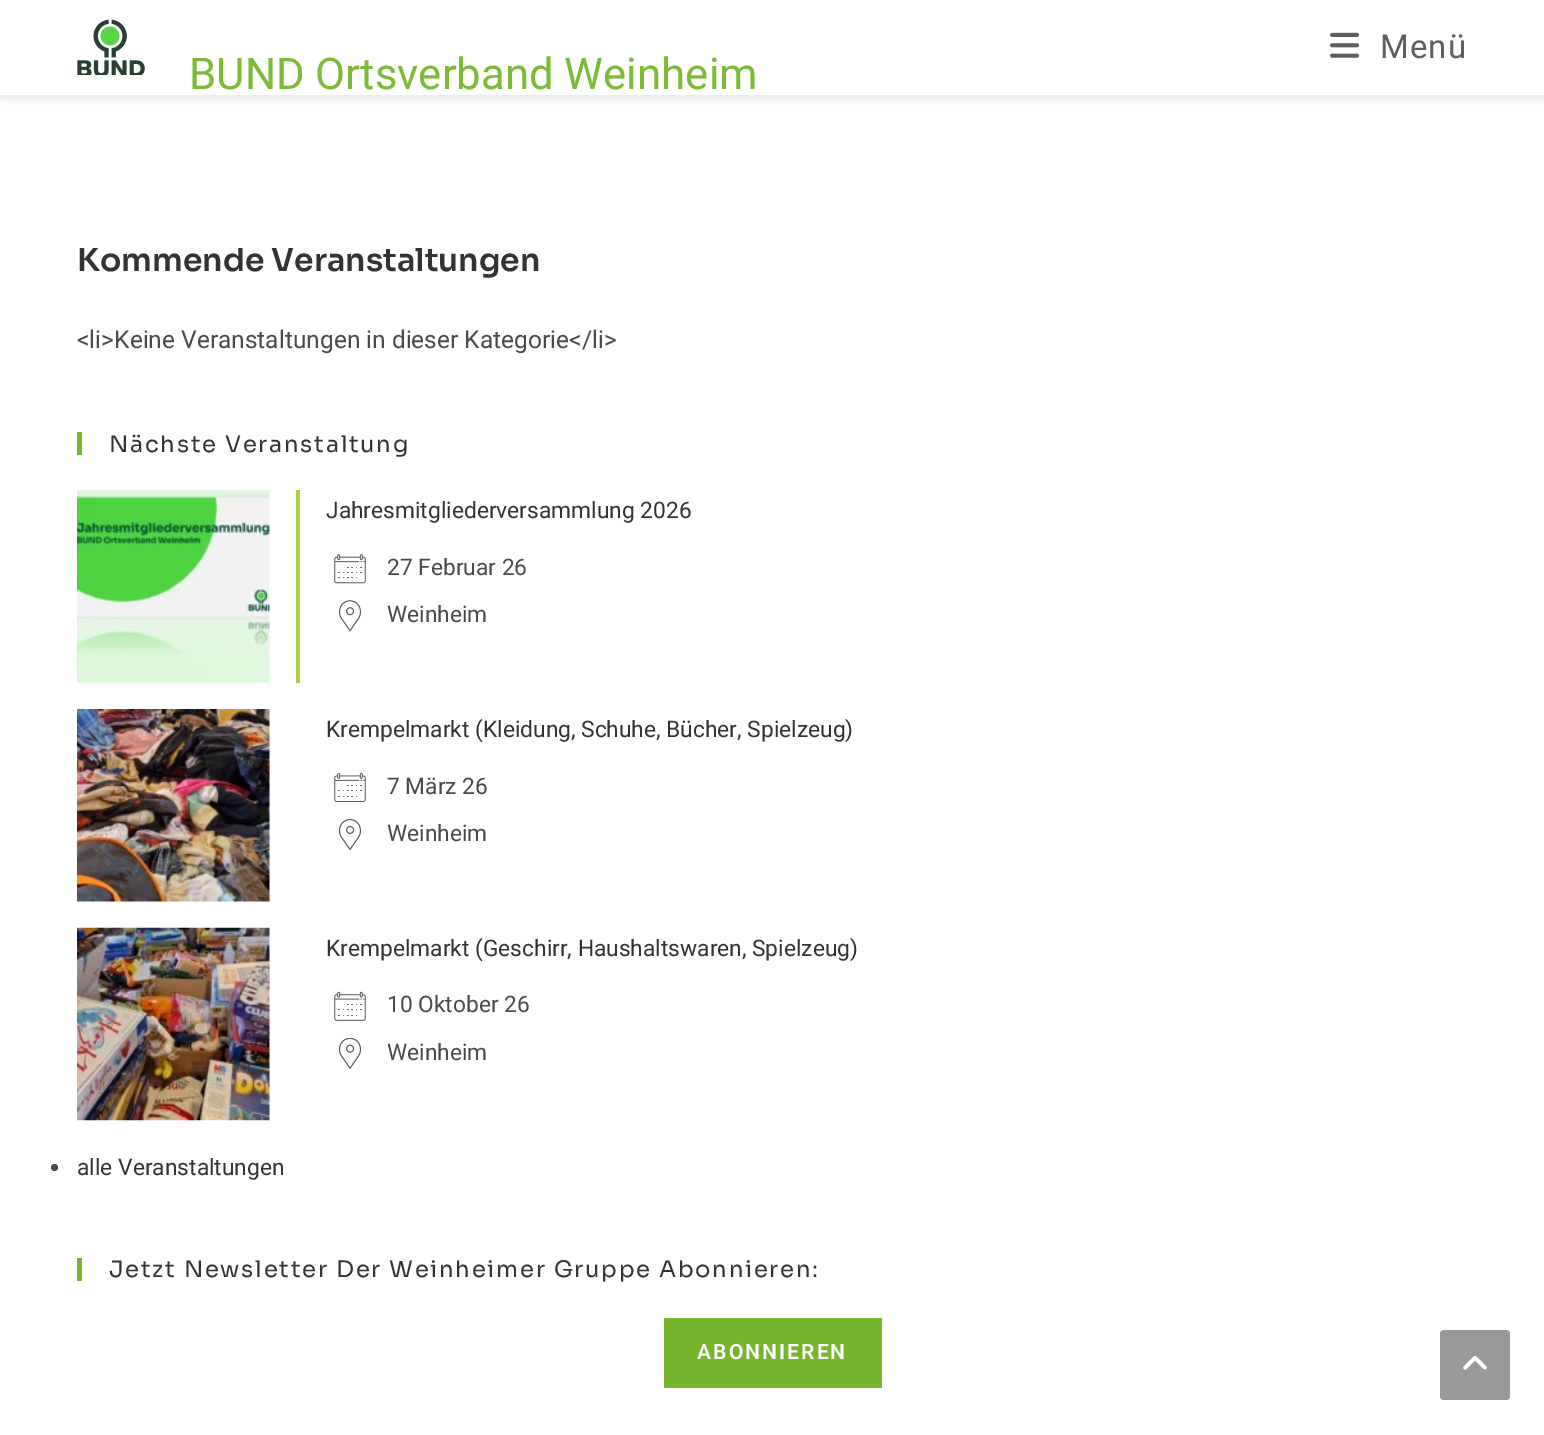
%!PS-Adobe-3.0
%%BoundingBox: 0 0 1544 1435
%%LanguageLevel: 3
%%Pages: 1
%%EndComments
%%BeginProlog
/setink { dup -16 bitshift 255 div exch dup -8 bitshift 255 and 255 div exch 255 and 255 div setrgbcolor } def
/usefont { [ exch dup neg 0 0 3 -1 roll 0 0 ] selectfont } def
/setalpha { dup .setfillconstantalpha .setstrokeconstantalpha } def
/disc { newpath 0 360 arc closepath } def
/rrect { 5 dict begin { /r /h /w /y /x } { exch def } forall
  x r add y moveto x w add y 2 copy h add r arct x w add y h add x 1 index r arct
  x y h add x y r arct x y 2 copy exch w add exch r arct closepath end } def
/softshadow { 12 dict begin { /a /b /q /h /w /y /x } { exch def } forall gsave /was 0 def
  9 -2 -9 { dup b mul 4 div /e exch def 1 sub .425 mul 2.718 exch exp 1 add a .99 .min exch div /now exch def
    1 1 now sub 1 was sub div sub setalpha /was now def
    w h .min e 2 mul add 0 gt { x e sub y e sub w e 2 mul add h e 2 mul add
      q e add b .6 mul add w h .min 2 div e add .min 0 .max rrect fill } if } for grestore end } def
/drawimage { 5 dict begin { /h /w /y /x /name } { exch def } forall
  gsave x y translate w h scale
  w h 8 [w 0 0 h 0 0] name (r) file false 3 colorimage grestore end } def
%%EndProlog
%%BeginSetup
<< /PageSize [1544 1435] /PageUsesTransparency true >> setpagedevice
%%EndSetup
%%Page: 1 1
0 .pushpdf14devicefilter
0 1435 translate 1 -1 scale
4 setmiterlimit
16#FFFFFF setink
0 0 1544 1435 rectfill
gsave
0 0 moveto 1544 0 lineto 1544 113 lineto 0 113 lineto closepath 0 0 moveto 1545 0 lineto 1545 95 lineto 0 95 lineto closepath eoclip newpath
16#000000 setink
0 4 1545 94 0 4.5 0.1 softshadow
grestore
0.95 setalpha
0 94 1544 1 rectfill
1 setalpha
(img1.raw) 1330 32 30 26 drawimage
/Roboto-Regular 33 usefont
16#5E5E5E setink
1380 58 moveto 1 0 (Menü) ashow
(img2.raw) 77 19 68 56 drawimage
/Roboto-Regular 43.75 usefont
16#7CBA37 setink
189 89 moveto (BUND Ortsverband Weinheim) show
/Sora-SemiBold 31.5 usefont
16#333333 setink
77 271 moveto (Kommende Veranstaltungen) show
/Roboto-Regular 24.5 usefont
16#4A4A4A setink
77 348 moveto (<li>Keine Veranstaltungen in dieser Kategorie</li>) show
16#75B62D setink
77 432 5 23 rectfill
/Sora-Regular 22.75 usefont
16#333333 setink
109 452 moveto 1.75 0 (Nächste Veranstaltung) ashow
(img3.raw) 77 490 193 193 drawimage
16#A8D144 setink
296 490 4 193 rectfill
/Roboto-Regular 22.75 usefont
16#333333 setink
326 518 moveto (Jahresmitgliederversammlung 2026) show
(img4.raw) 334 554 32 30 drawimage
16#4A4A4A setink
387 575 moveto (27 Februar 26) show
(img5.raw) 339 600 22 32 drawimage
387 622 moveto (Weinheim) show
(img6.raw) 77 709 193 193 drawimage
16#333333 setink
326 737 moveto (Krempelmarkt \(Kleidung, Schuhe, Bücher, Spielzeug\)) show
(img7.raw) 334 773 32 29 drawimage
16#4A4A4A setink
387 794 moveto (7 März 26) show
(img8.raw) 339 819 22 32 drawimage
387 841 moveto (Weinheim) show
(img9.raw) 77 927 193 194 drawimage
16#333333 setink
326 956 moveto (Krempelmarkt \(Geschirr, Haushaltswaren, Spielzeug\)) show
(img10.raw) 334 991 32 30 drawimage
16#4A4A4A setink
387 1012 moveto (10 Oktober 26) show
(img11.raw) 339 1038 22 31 drawimage
387 1060 moveto (Weinheim) show
54.5 1167.5 3.5 disc fill
16#333333 setink
77 1175 moveto (alle Veranstaltungen) show
16#75B62D setink
77 1258 5 23 rectfill
/Sora-Regular 22.75 usefont
16#333333 setink
109 1277 moveto 1.75 0 (Jetzt Newsletter Der Weinheimer Gruppe Abonnieren:) ashow
16#75B62D setink
664 1318 218 70 rectfill
/Roboto-SemiBold 21 usefont
16#FFFFFF setink
697 1359 moveto 2.1 0 (ABONNIEREN) ashow
16#999999 setink
1440 1330 70 70 4 rrect fill
(img12.raw) 1463 1355 24 15 drawimage
.poppdf14devicefilter showpage
%%EOF
